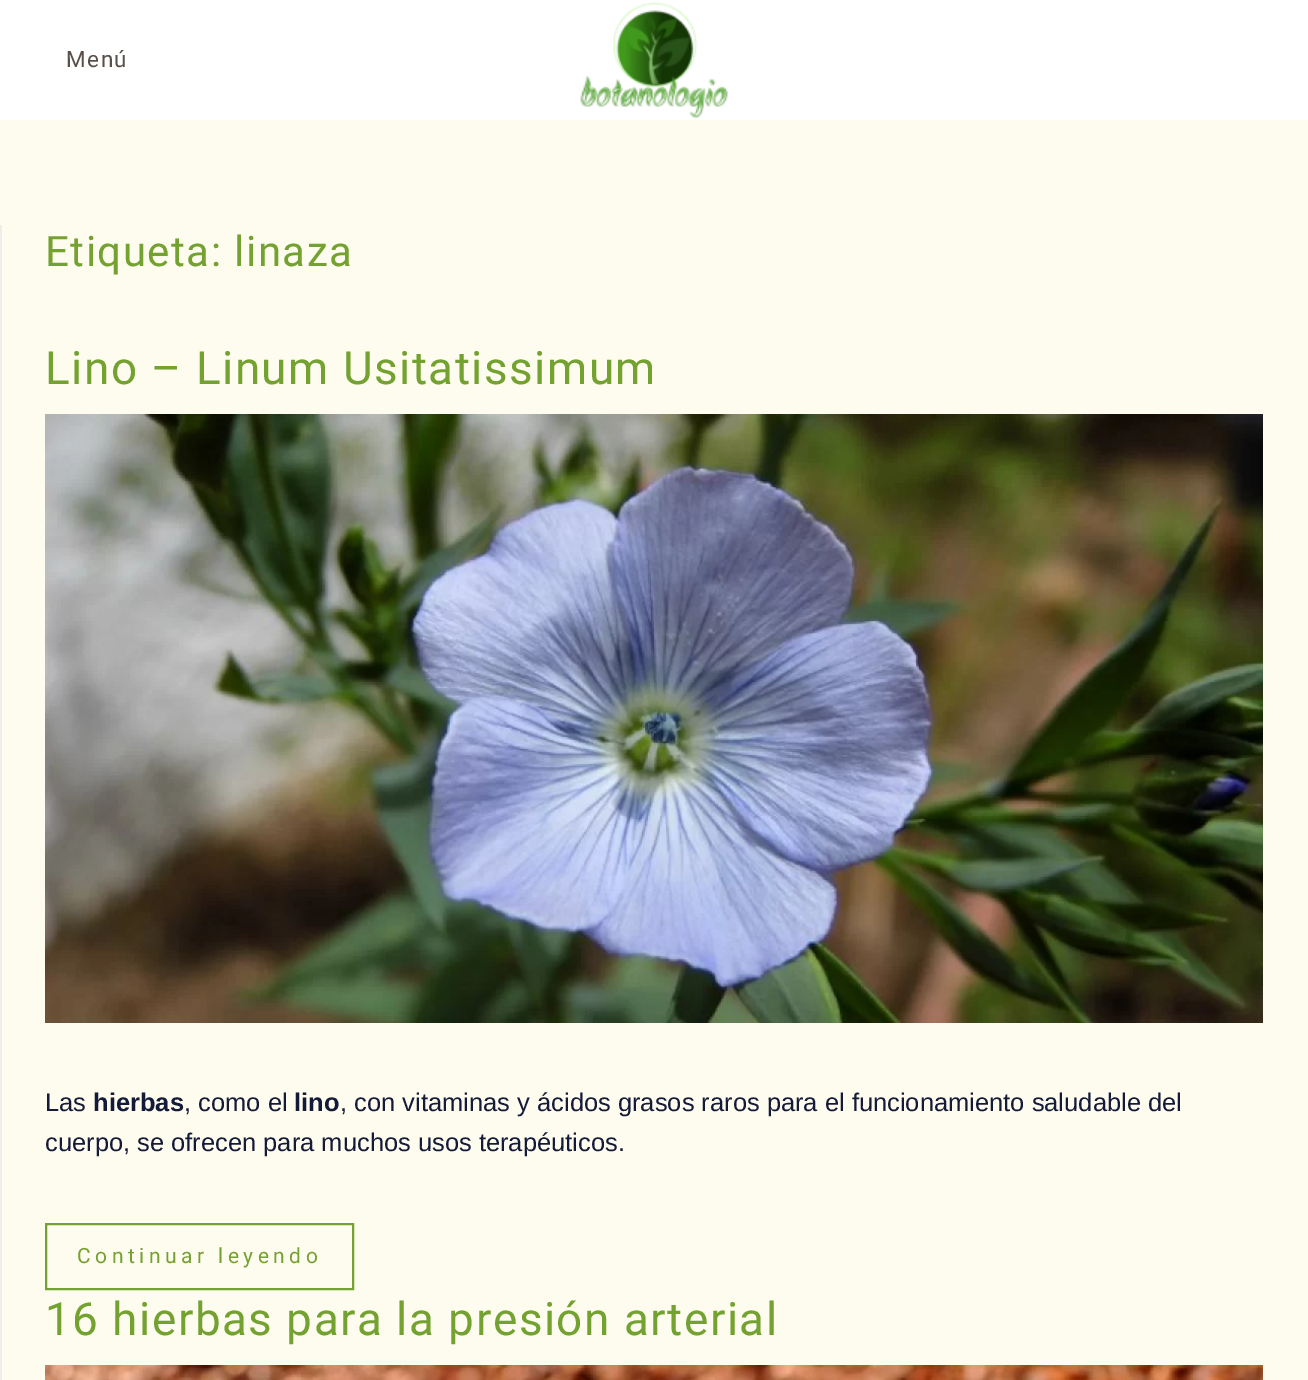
%!PS-Adobe-3.0
%%BoundingBox: 0 0 1308 1380
%%LanguageLevel: 3
%%Pages: 1
%%EndComments
%%BeginProlog
/setink { dup -16 bitshift 255 div exch dup -8 bitshift 255 and 255 div exch 255 and 255 div setrgbcolor } def
/usefont { [ exch dup neg 0 0 3 -1 roll 0 0 ] selectfont } def
/drawimage { 5 dict begin { /h /w /y /x /name } { exch def } forall
  gsave x y translate w h scale
  w h 8 [w 0 0 h 0 0] name (r) file false 3 colorimage grestore end } def
%%EndProlog
%%BeginSetup
<< /PageSize [1308 1380] >> setpagedevice
%%EndSetup
%%Page: 1 1
0 1380 translate 1 -1 scale
4 setmiterlimit
16#FEFBEF setink
0 0 1308 1380 rectfill
16#FFFFFF setink
0 0 1308 120 rectfill
/Roboto-Regular 22.5 usefont
16#595149 setink
66 67 moveto 1.5 0 (Menú) ashow
(img1.raw) 580 2 148 117 drawimage
16#F0EDE8 setink
0 225 2 1155 rectfill
/Roboto-Regular 42 usefont
16#74A230 setink
45 266 moveto 1.5 0 (Etiqueta: linaza) ashow
/Roboto-Regular 45.9 usefont
45 384 moveto 1.5 0 (Lino – Linum Usitatissimum) ashow
(img2.raw) 45 414 1218 609 drawimage
/LiberationSans-Regular 25.5 usefont
16#141B38 setink
45 1111 moveto (Las) show
/LiberationSans-Bold 25.5 usefont
93 1111 moveto (hierbas) show
/LiberationSans-Regular 25.5 usefont
184 1111 moveto (, como el) show
/LiberationSans-Bold 25.5 usefont
294 1111 moveto (lino) show
/LiberationSans-Regular 25.5 usefont
340 1111 moveto (, con vitaminas y ácidos grasos raros para el funcionamiento saludable del) show
45 1151 moveto (cuerpo, se ofrecen para muchos usos terapéuticos.) show
16#74A230 setink
2 setlinewidth
46 1224 307 65 rectstroke
/Roboto-Regular 21 usefont
77 1263 moveto 4.5 0 (Continuar leyendo) ashow
/Roboto-Regular 45.9 usefont
45 1335 moveto 1.5 0 (16 hierbas para la presión arterial) ashow
(img3.raw) 45 1365 1218 15 drawimage
showpage
%%EOF
